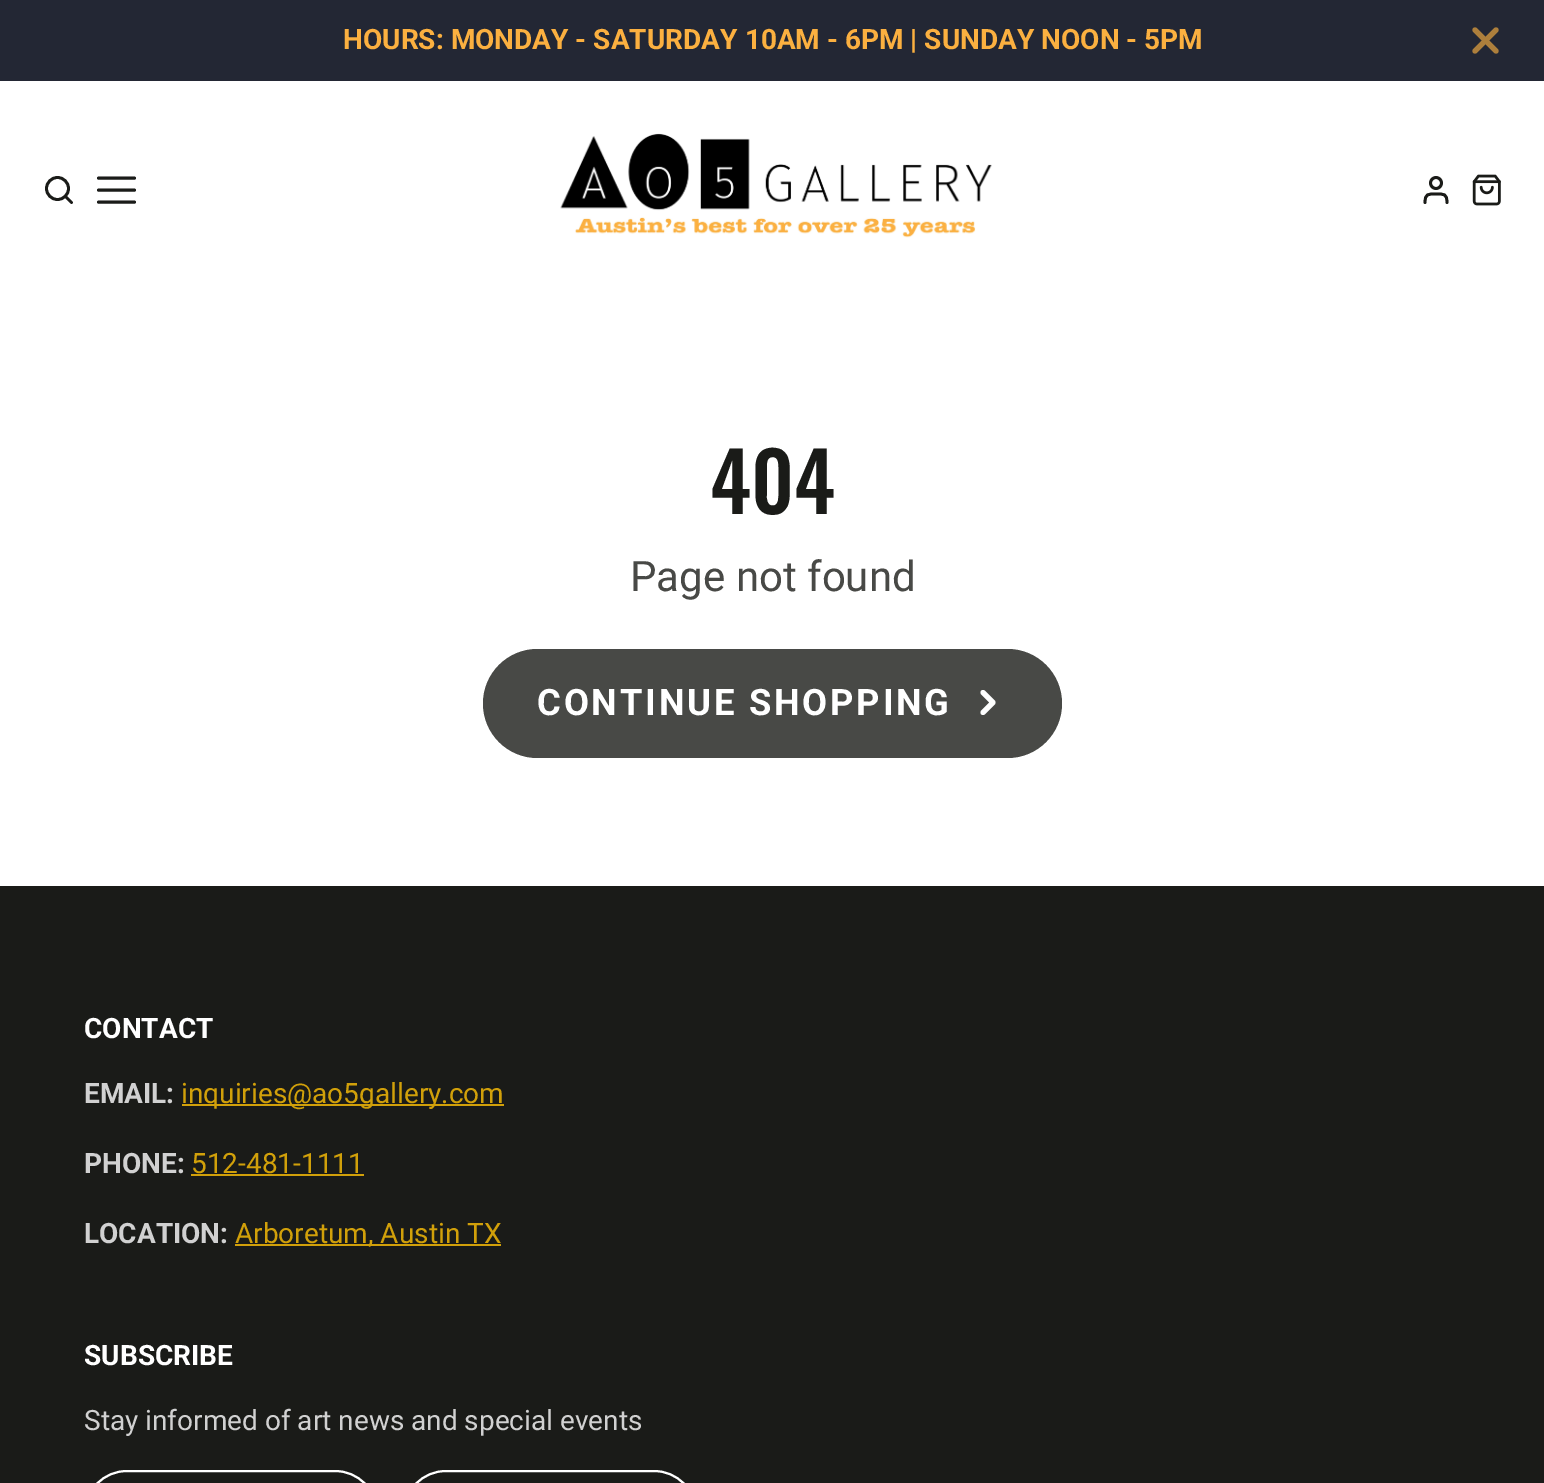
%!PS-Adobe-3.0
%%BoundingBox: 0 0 1544 1483
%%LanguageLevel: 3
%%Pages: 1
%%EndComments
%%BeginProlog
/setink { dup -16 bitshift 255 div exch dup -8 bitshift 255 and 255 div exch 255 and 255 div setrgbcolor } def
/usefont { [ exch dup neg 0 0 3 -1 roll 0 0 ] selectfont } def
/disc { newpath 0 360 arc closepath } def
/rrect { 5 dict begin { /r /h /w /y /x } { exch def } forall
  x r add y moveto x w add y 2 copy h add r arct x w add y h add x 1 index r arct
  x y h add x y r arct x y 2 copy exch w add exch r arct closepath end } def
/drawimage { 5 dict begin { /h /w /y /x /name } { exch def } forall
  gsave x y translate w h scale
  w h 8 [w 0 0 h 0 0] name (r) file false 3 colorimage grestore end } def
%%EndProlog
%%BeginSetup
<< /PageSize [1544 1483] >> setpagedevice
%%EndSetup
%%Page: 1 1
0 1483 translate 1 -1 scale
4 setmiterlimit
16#FFFFFF setink
0 0 1544 1483 rectfill
16#232734 setink
0 0 1544 81 rectfill
/Roboto-Bold 28 usefont
16#FBB040 setink
343 49 moveto (HOURS: MONDAY - SATURDAY 10AM - 6PM | SUNDAY NOON - 5PM) show
16#AD7F3C setink
5.2 setlinewidth
1 setlinecap
1 setlinejoin
1496 30 moveto 1475 51 lineto 1475 30 moveto 1496 51 lineto stroke
16#1A1B18 setink
2.8 setlinewidth
0 setlinecap
0 setlinejoin
57.5 188.5 11 disc stroke
1 setlinecap
1 setlinejoin
71.5 202.5 moveto 65.5 196.5 lineto stroke
3 setlinewidth
98.5 190 moveto 134.5 190 lineto 98.5 178 moveto 134.5 178 lineto 98.5 202 moveto 134.5 202 lineto stroke
(img1.raw) 560 133 432 105 drawimage
2.8 setlinewidth
0 setlinecap
0 setlinejoin
1436 183 5.5 disc stroke
1 setlinecap
1 setlinejoin
1447 202.5 moveto 1447 193.5 1444 194 1436 194 curveto 1428 194 1425 193.5 1425 202.5 curveto stroke
(img2.raw) 1472 174 29 32 drawimage
/Oswald-Medium 81 usefont
710 514 moveto (404) show
/Roboto-Regular 42 usefont
16#484946 setink
630 591 moveto (Page not found) show
483 649 579 109 54.5 rrect fill
/Roboto-Bold 36.4 usefont
16#FFFFFF setink
537 715 moveto 2.75 0 (CONTINUE SHOPPING) ashow
5 setlinewidth
983 712.5 moveto 993 702.5 lineto 983 692.5 lineto stroke
16#1A1B18 setink
0 886 1544 597 rectfill
/Roboto-Bold 28 usefont
16#FFFFFF setink
84 1038 moveto (CONTACT) show
16#D1D1D1 setink
84 1103 moveto (EMAIL:) show
16#D1A00A setink
182 1104 322 2 rectfill
/Roboto-Regular 28 usefont
181 1103 moveto (inquiries@ao5gallery.com) show
/Roboto-Bold 28 usefont
16#D1D1D1 setink
84 1173 moveto (PHONE:) show
/Roboto-Regular 28 usefont
16#D1A00A setink
191 1173 moveto (512-481-1111) show
191 1174 173 2 rectfill
/Roboto-Bold 28 usefont
16#D1D1D1 setink
84 1243 moveto (LOCATION:) show
16#D1A00A setink
235 1244 266 2 rectfill
/Roboto-Regular 28 usefont
235 1243 moveto (Arboretum, Austin TX) show
/Roboto-Bold 28 usefont
16#FFFFFF setink
84 1365 moveto (SUBSCRIBE) show
/Roboto-Regular 28 usefont
16#D1D1D1 setink
84 1430 moveto (Stay informed of art news and special events) show
16#FFFFFF setink
2 setlinewidth
0 setlinecap
0 setlinejoin
85 1471 292 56 42 rrect stroke
404 1471 292 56 42 rrect stroke
showpage
%%EOF
